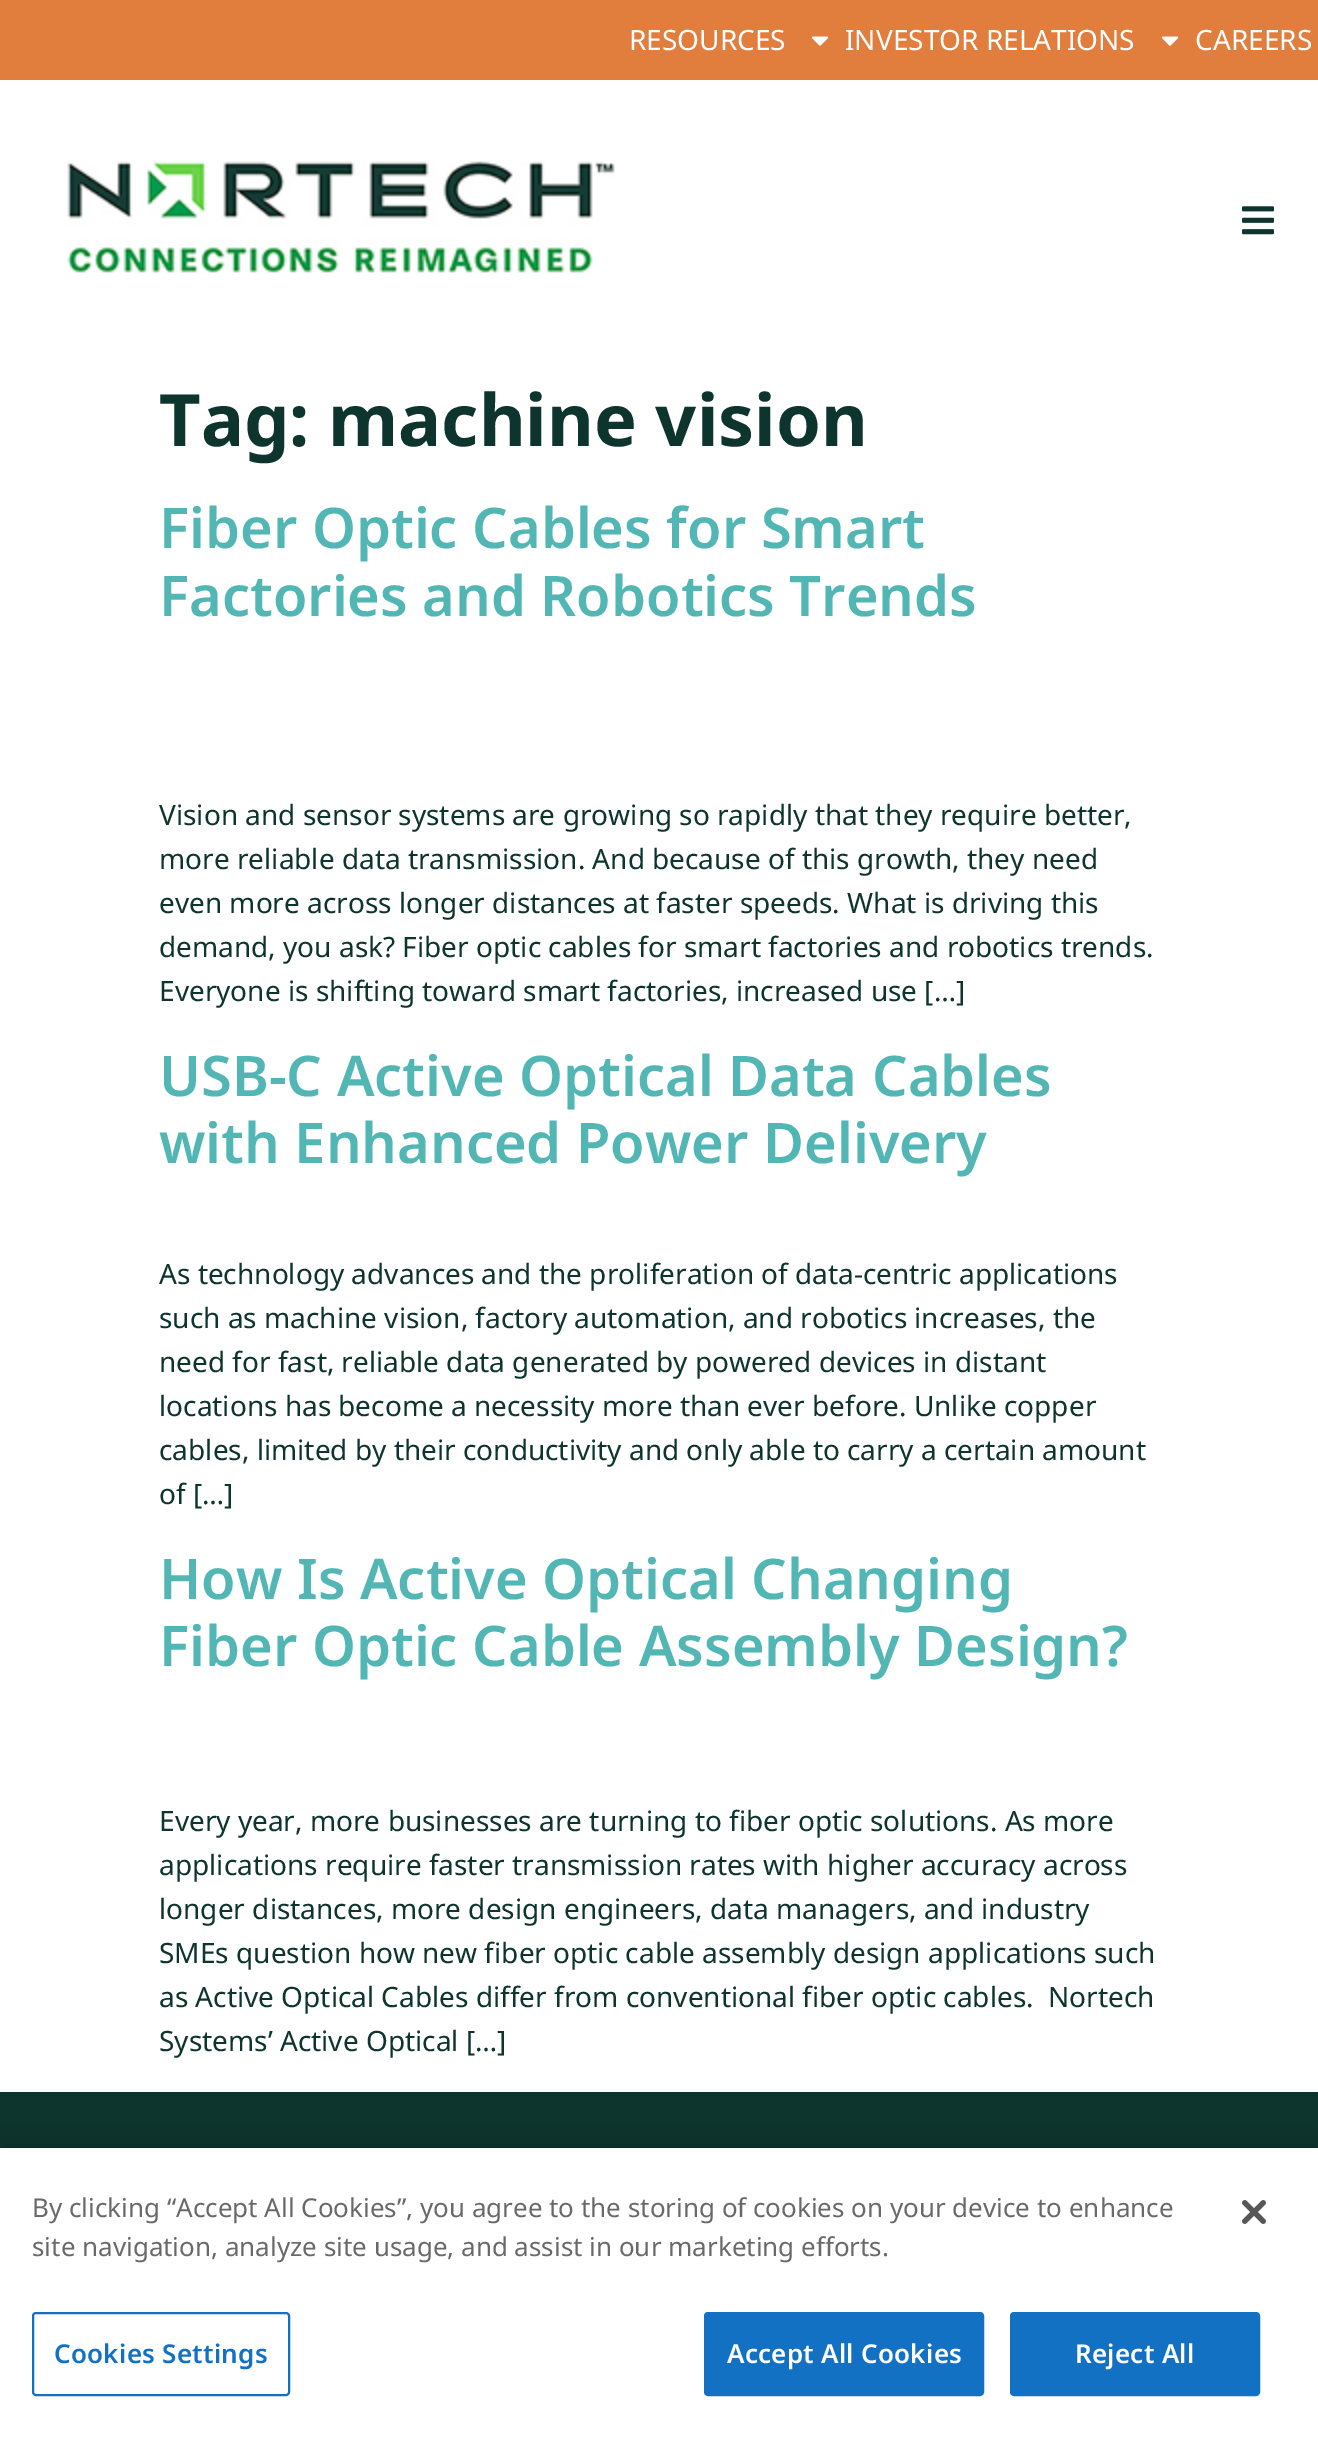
%!PS-Adobe-3.0
%%BoundingBox: 0 0 1318 2437
%%LanguageLevel: 3
%%Pages: 1
%%EndComments
%%BeginProlog
/setink { dup -16 bitshift 255 div exch dup -8 bitshift 255 and 255 div exch 255 and 255 div setrgbcolor } def
/usefont { [ exch dup neg 0 0 3 -1 roll 0 0 ] selectfont } def
/setalpha { dup .setfillconstantalpha .setstrokeconstantalpha } def
/rrect { 5 dict begin { /r /h /w /y /x } { exch def } forall
  x r add y moveto x w add y 2 copy h add r arct x w add y h add x 1 index r arct
  x y h add x y r arct x y 2 copy exch w add exch r arct closepath end } def
/softshadow { 12 dict begin { /a /b /q /h /w /y /x } { exch def } forall gsave /was 0 def
  9 -2 -9 { dup b mul 4 div /e exch def 1 sub .425 mul 2.718 exch exp 1 add a .99 .min exch div /now exch def
    1 1 now sub 1 was sub div sub setalpha /was now def
    w h .min e 2 mul add 0 gt { x e sub y e sub w e 2 mul add h e 2 mul add
      q e add b .6 mul add w h .min 2 div e add .min 0 .max rrect fill } if } for grestore end } def
/drawimage { 5 dict begin { /h /w /y /x /name } { exch def } forall
  gsave x y translate w h scale
  w h 8 [w 0 0 h 0 0] name (r) file false 3 colorimage grestore end } def
%%EndProlog
%%BeginSetup
<< /PageSize [1318 2437] /PageUsesTransparency true >> setpagedevice
%%EndSetup
%%Page: 1 1
0 .pushpdf14devicefilter
0 2437 translate 1 -1 scale
4 setmiterlimit
16#FFFFFF setink
0 0 1318 2437 rectfill
16#E17E3E setink
0 0 1318 80 rectfill
/NotoSans-Regular 28 usefont
16#FFFFFF setink
629 50 moveto (RESOURCES) show
(img1.raw) 811 36 18 10 drawimage
845 50 moveto (INVESTOR RELATIONS) show
(img1.raw) 1161 36 18 10 drawimage
1195 50 moveto (CAREERS) show
(img2.raw) 67 161 548 112 drawimage
(img3.raw) 1242 206 32 29 drawimage
/NotoSans-Bold 72 usefont
16#0E342E setink
159 446 moveto (Tag: machine vision) show
/NotoSans-SemiBold 56 usefont
16#52B7B4 setink
159 548 moveto (Fiber Optic Cables for Smart) show
159 616 moveto (Factories and Robotics Trends) show
/NotoSans-Regular 28 usefont
16#0E342E setink
[
    [(Vision and sensor systems are growing so rapidly that they require better,) 159 825]
    [(more reliable data transmission. And because of this growth, they need) 159 869]
    [(even more across longer distances at faster speeds. What is driving this) 159 913]
    [(demand, you ask? Fiber optic cables for smart factories and robotics trends.) 159 957]
    [(Everyone is shifting toward smart factories, increased use […]) 159 1001]
] { aload pop moveto show } forall
/NotoSans-SemiBold 56 usefont
16#52B7B4 setink
159 1096 moveto (USB-C Active Optical Data Cables) show
159 1163 moveto (with Enhanced Power Delivery) show
/NotoSans-Regular 28 usefont
16#0E342E setink
[
    [(As technology advances and the proliferation of data-centric applications) 159 1284]
    [(such as machine vision, factory automation, and robotics increases, the) 159 1328]
    [(need for fast, reliable data generated by powered devices in distant) 159 1372]
    [(locations has become a necessity more than ever before. Unlike copper) 159 1416]
    [(cables, limited by their conductivity and only able to carry a certain amount) 159 1460]
    [(of […]) 159 1504]
] { aload pop moveto show } forall
/NotoSans-SemiBold 56 usefont
16#52B7B4 setink
159 1599 moveto (How Is Active Optical Changing) show
159 1666 moveto (Fiber Optic Cable Assembly Design?) show
/NotoSans-Regular 28 usefont
16#0E342E setink
[
    [(Every year, more businesses are turning to fiber optic solutions. As more) 159 1831]
    [(applications require faster transmission rates with higher accuracy across) 159 1875]
    [(longer distances, more design engineers, data managers, and industry) 159 1919]
    [(SMEs question how new fiber optic cable assembly design applications such) 159 1963]
    [(as Active Optical Cables differ from conventional fiber optic cables.  Nortech) 159 2007]
    [(Systems’ Active Optical […]) 159 2051]
] { aload pop moveto show } forall
0 2092 1318 56 rectfill
16#000000 setink
0 2148 1318 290 0 18 0.2 softshadow
16#FFFFFF setink
0 2148 1318 289 rectfill
/NotoSans-Regular 26 usefont
16#696969 setink
32 2217 moveto (By clicking “Accept All Cookies”, you agree to the storing of cookies on your device to enhance) show
32 2256 moveto (site navigation, analyze site usage, and assist in our marketing efforts.) show
16#1371C3 setink
2 setlinewidth
33 2313 256 82 3 rrect stroke
/NotoSans-SemiBold 26 usefont
54 2363 moveto 0.25 0 (Cookies Settings) ashow
705 2313 278 82 3 rrect gsave fill grestore
stroke
16#FFFFFF setink
727 2363 moveto 0.25 0 (Accept All Cookies) ashow
16#1371C3 setink
1011 2313 248 82 3 rrect gsave fill grestore
stroke
16#FFFFFF setink
1075 2363 moveto 0.25 0 (Reject All) ashow
(img4.raw) 1242 2200 24 24 drawimage
.poppdf14devicefilter showpage
%%EOF
